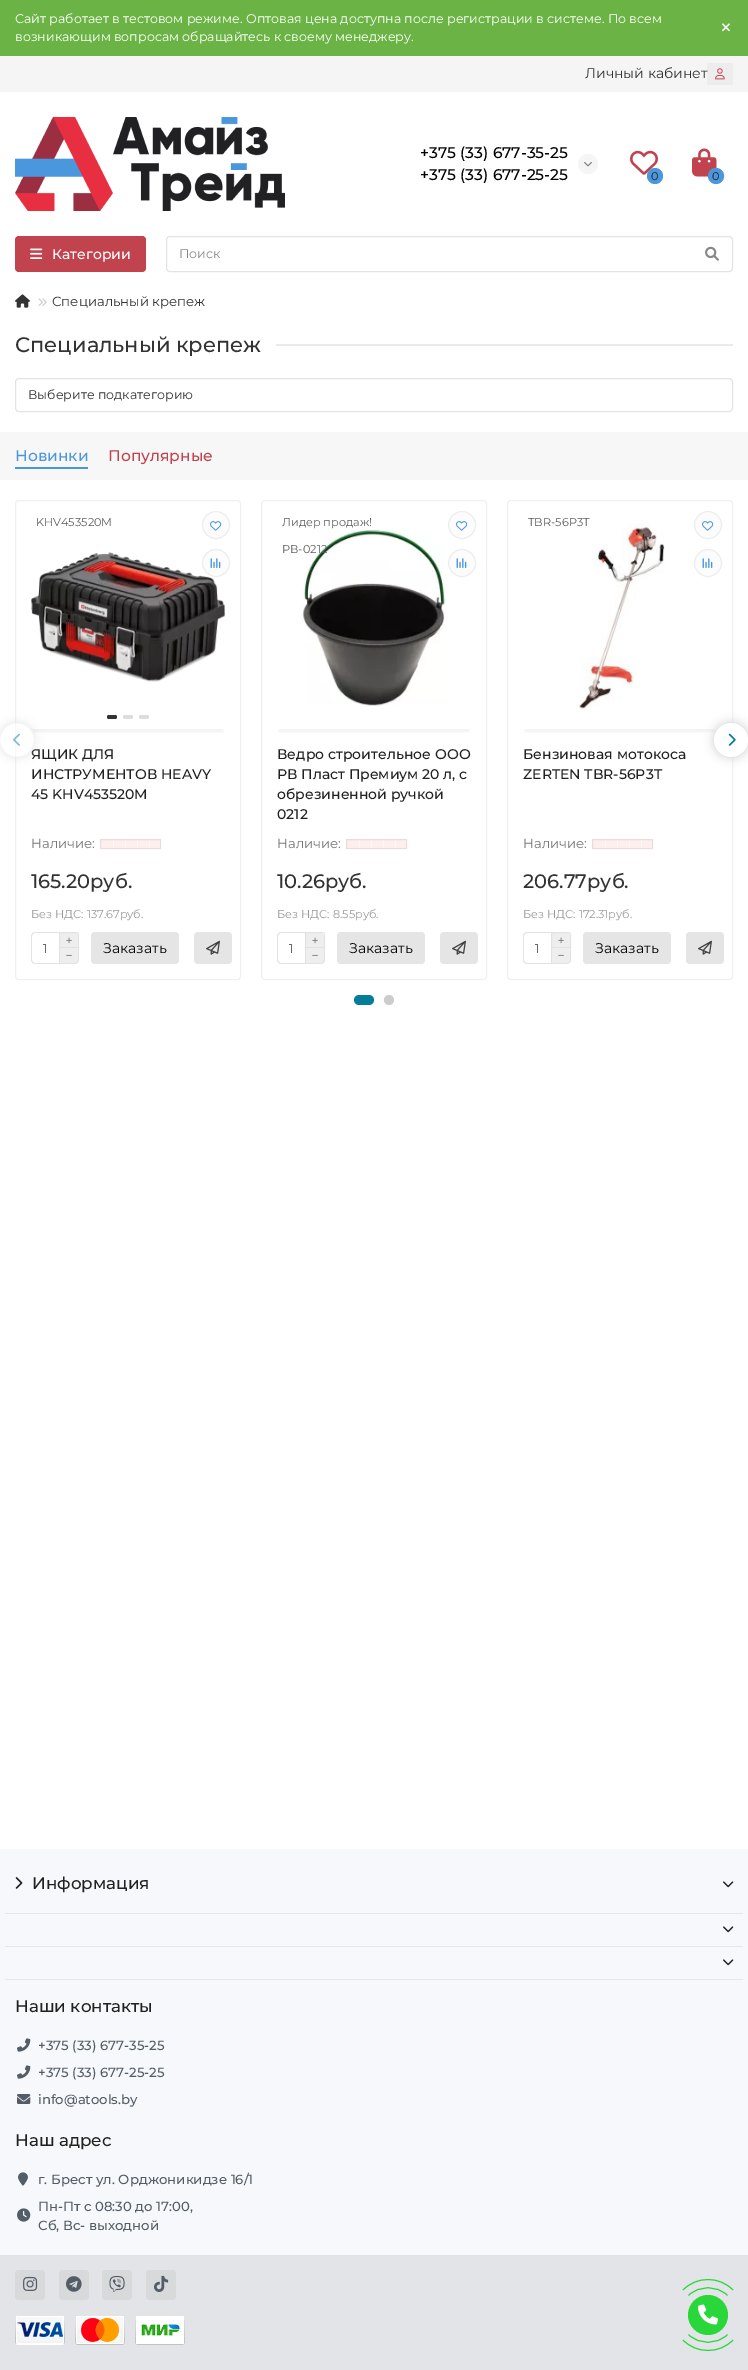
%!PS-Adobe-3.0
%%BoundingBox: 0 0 748 2370
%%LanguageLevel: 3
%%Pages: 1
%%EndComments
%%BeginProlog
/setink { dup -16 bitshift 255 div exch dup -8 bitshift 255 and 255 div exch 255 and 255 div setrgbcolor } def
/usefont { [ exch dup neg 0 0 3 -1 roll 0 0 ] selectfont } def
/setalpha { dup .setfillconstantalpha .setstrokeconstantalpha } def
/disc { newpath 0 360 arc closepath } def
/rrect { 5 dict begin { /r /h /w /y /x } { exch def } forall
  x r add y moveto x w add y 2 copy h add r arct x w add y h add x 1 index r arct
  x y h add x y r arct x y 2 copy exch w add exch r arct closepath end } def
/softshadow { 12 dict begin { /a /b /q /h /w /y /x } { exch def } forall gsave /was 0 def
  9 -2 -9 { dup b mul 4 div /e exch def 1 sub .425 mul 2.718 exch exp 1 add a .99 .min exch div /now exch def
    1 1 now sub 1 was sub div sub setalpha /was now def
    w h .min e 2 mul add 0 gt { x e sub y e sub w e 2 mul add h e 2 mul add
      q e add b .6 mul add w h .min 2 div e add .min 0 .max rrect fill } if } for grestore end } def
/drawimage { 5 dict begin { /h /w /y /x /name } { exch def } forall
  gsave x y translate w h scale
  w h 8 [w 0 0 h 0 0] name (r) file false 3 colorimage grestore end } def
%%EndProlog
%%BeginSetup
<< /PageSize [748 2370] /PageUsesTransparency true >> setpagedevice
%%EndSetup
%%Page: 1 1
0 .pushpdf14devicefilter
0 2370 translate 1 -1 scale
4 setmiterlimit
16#FFFFFF setink
0 0 748 2370 rectfill
16#6AB344 setink
0 0 748 56 rectfill
/Montserrat-Regular 12.6 usefont
16#FFFFFF setink
15 23 moveto (Сайт работает в тестовом режиме. Оптовая цена доступна после регистрации в системе. По всем) show
15 41 moveto (возникающим вопросам обращайтесь к своему менеджеру.) show
(img1.raw) 722 23 8 9 drawimage
16#F5F5F5 setink
0 56 748 36 rectfill
/Montserrat-Regular 14 usefont
16#333333 setink
585 78 moveto (Личный кабинет) show
0.03 setalpha
16#000000 setink
707 63 26 22 rectfill
1 setalpha
(img2.raw) 715 68 10 12 drawimage
(img3.raw) 15 117 270 94 drawimage
/Montserrat-Medium 15.5 usefont
420 158 moveto (+375 \(33\) 677-35-25) show
16#F5F5F5 setink
588 164 10 disc fill
(img4.raw) 584 162 8 5 drawimage
16#000000 setink
420 180 moveto (+375 \(33\) 677-25-25) show
(img5.raw) 630 150 28 25 drawimage
16#4A97DD setink
655 176 8 disc fill
/Montserrat-Regular 11.25 usefont
16#212121 setink
651 180 moveto (0) show
(img6.raw) 692 148 25 29 drawimage
16#4A97DD setink
716 176 8 disc fill
16#212121 setink
712 180 moveto (0) show
16#C0434D setink
15 236 131 36 4 rrect fill
(img7.raw) 30 248 13 11 drawimage
/Montserrat-Medium 14 usefont
16#FFFFFF setink
52 259 moveto (Категории) show
16#E3E3E3 setink
166.5 236.5 566 35 3.5 rrect stroke
/Montserrat-Regular 12.6 usefont
16#888888 setink
179 258 moveto (Поиск) show
(img8.raw) 705 246 14 15 drawimage
(img9.raw) 15 294 15 14 drawimage
(img10.raw) 38 298 9 8 drawimage
/Montserrat-Regular 13.25 usefont
16#333333 setink
52 306 moveto (Специальный крепеж) show
/Montserrat-Medium 21 usefont
15 352 moveto (Специальный крепеж) show
16#EBEBEB setink
276 344 457 2 rectfill
16#E3E3E3 setink
15.5 378.5 717 33 3.5 rrect stroke
/Montserrat-Regular 12.6 usefont
16#333333 setink
28 399 moveto (Выберите подкатегорию) show
16#F7F7F7 setink
0 432 748 48 rectfill
/Montserrat-Medium 15.5 usefont
16#4A97DD setink
15 461 moveto (Новинки) show
15 467 73 2 rectfill
16#C0434D setink
108 461 moveto (Популярные) show
16#F0F0F0 setink
15.5 500.5 225 479 3.5 rrect stroke
gsave
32 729 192 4 rectclip
16#000000 setink
33 523 190 209 0 2.5 0.06 softshadow
grestore
/Montserrat-Regular 11.25 usefont
16#5C5C5C setink
36 526 moveto (KHV453520M) show
(img11.raw) 31 552 194 130 drawimage
16#333333 setink
107 715 10 4 2 rrect fill
16#DDDDDD setink
123 715 10 4 2 rrect fill
139 715 10 4 2 rrect fill
/Montserrat-Medium 14 usefont
16#212121 setink
[
    [(ЯЩИК ДЛЯ) 31 759]
    [(ИНСТРУМЕНТОВ HEAVY) 31 779]
    [(45 KHV453520M) 31 799]
] { aload pop moveto show } forall
/Montserrat-Regular 13.25 usefont
16#777777 setink
31 848 moveto (Наличие:) show
16#FEEFEF setink
100 839 61 10 2 rrect fill
gsave
100 839 61 10 2 rrect clip newpath
100 839 1 10 rectfill
grestore
[
    [125 839 1 10 16#FFF7F7]
    [113 839 1 10 16#FFF7F7]
    [149 839 1 10 16#FFF7F7]
    [137 839 1 10 16#FFF7F7]
] { aload pop setink rectfill } forall
0.08 setalpha
16#000000 setink
100.5 839.5 60 9 rectstroke
/Montserrat-Medium 19.5 usefont
1 setalpha
16#333333 setink
31 888 moveto (165.20руб.) show
/Montserrat-Regular 11.25 usefont
16#999999 setink
31 918 moveto (Без НДС: 137.67руб.) show
16#FCFCFC setink
216 525 13.5 disc gsave fill grestore
16#EDEDED setink
stroke
(img12.raw) 210 521 12 10 drawimage
16#FCFCFC setink
216 563 13.5 disc gsave fill grestore
16#EDEDED setink
stroke
(img13.raw) 210 558 11 10 drawimage
16#E3E3E3 setink
35 932 moveto 59 932 lineto 59 964 lineto 35 964 lineto 33 964 31 962 31 960 curveto 31 936 lineto 31 934 33 932 35 932 curveto closepath 35 933 moveto 59 933 lineto 59 963 lineto 35 963 lineto 33.5 963 32 961.5 32 960 curveto 32 936 lineto 32 934.5 33.5 933 35 933 curveto closepath eofill
/Montserrat-Regular 12.6 usefont
16#333333 setink
43 953 moveto (1) show
16#EEEEEE setink
59 932 moveto 75 932 lineto 77 932 79 934 79 936 curveto 79 948 lineto 59 948 lineto closepath fill
0.05 setalpha
16#000000 setink
59.5 932.5 19 15 rectstroke
1 setalpha
(img14.raw) 66 937 6 7 drawimage
16#EEEEEE setink
59 948 moveto 79 948 lineto 79 960 lineto 79 962 77 964 75 964 curveto 59 964 lineto closepath fill
0.05 setalpha
16#000000 setink
59 948 moveto 79 948 lineto 79 960 lineto 79 962 77 964 75 964 curveto 59 964 lineto closepath 60 948 moveto 78 948 lineto 78 960 lineto 78 961.5 76.5 963 75 963 curveto 60 963 lineto closepath eofill
1 setalpha
(img15.raw) 66 954 6 2 drawimage
16#E5E5E5 setink
91 932 88 32 4 rrect fill
/Montserrat-Regular 14 usefont
16#000000 setink
103 953 moveto (Заказать) show
16#E5E5E5 setink
194 932 38 32 4 rrect fill
(img16.raw) 206 940 14 15 drawimage
16#F0F0F0 setink
261.5 500.5 225 479 3.5 rrect stroke
gsave
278 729 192 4 rectclip
16#000000 setink
279 523 190 209 0 2.5 0.06 softshadow
grestore
/Montserrat-Regular 11.25 usefont
16#5C5C5C setink
282 526 moveto (Лидер продаж!) show
(img17.raw) 302 530 145 176 drawimage
282 553 moveto (РВ-0212) show
/Montserrat-Medium 14 usefont
16#212121 setink
[
    [(Ведро строительное ООО) 277 759]
    [(РВ Пласт Премиум 20 л, с) 277 779]
    [(обрезиненной ручкой) 277 799]
    [(0212) 277 819]
] { aload pop moveto show } forall
/Montserrat-Regular 13.25 usefont
16#777777 setink
277 848 moveto (Наличие:) show
16#FEEFEF setink
346 839 61 10 2 rrect fill
gsave
346 839 61 10 2 rrect clip newpath
346 839 1 10 rectfill
grestore
[
    [371 839 1 10 16#FFF7F7]
    [359 839 1 10 16#FFF7F7]
    [395 839 1 10 16#FFF7F7]
    [383 839 1 10 16#FFF7F7]
] { aload pop setink rectfill } forall
0.08 setalpha
16#000000 setink
346.5 839.5 60 9 rectstroke
/Montserrat-Medium 19.5 usefont
1 setalpha
16#333333 setink
277 888 moveto (10.26руб.) show
/Montserrat-Regular 11.25 usefont
16#999999 setink
277 918 moveto (Без НДС: 8.55руб.) show
16#FCFCFC setink
462 525 13.5 disc gsave fill grestore
16#EDEDED setink
stroke
(img12.raw) 456 521 12 10 drawimage
16#FCFCFC setink
462 563 13.5 disc gsave fill grestore
16#EDEDED setink
stroke
(img13.raw) 456 558 11 10 drawimage
16#E3E3E3 setink
281 932 moveto 305 932 lineto 305 964 lineto 281 964 lineto 279 964 277 962 277 960 curveto 277 936 lineto 277 934 279 932 281 932 curveto closepath 281 933 moveto 305 933 lineto 305 963 lineto 281 963 lineto 279.5 963 278 961.5 278 960 curveto 278 936 lineto 278 934.5 279.5 933 281 933 curveto closepath eofill
/Montserrat-Regular 12.6 usefont
16#333333 setink
289 953 moveto (1) show
16#EEEEEE setink
305 932 moveto 321 932 lineto 323 932 325 934 325 936 curveto 325 948 lineto 305 948 lineto closepath fill
0.05 setalpha
16#000000 setink
305.5 932.5 19 15 rectstroke
1 setalpha
(img14.raw) 312 937 6 7 drawimage
16#EEEEEE setink
305 948 moveto 325 948 lineto 325 960 lineto 325 962 323 964 321 964 curveto 305 964 lineto closepath fill
0.05 setalpha
16#000000 setink
305 948 moveto 325 948 lineto 325 960 lineto 325 962 323 964 321 964 curveto 305 964 lineto closepath 306 948 moveto 324 948 lineto 324 960 lineto 324 961.5 322.5 963 321 963 curveto 306 963 lineto closepath eofill
1 setalpha
(img15.raw) 312 954 6 2 drawimage
16#E5E5E5 setink
337 932 88 32 4 rrect fill
/Montserrat-Regular 14 usefont
16#000000 setink
349 953 moveto (Заказать) show
16#E5E5E5 setink
440 932 38 32 4 rrect fill
(img16.raw) 452 940 14 15 drawimage
16#F0F0F0 setink
507.5 500.5 225 479 3.5 rrect stroke
gsave
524 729 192 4 rectclip
16#000000 setink
525 523 190 209 0 2.5 0.06 softshadow
grestore
(img18.raw) 579 523 86 187 drawimage
/Montserrat-Regular 11.25 usefont
16#5C5C5C setink
528 526 moveto (TBR-56P3T) show
/Montserrat-Medium 14 usefont
16#212121 setink
523 759 moveto (Бензиновая мотокоса) show
523 779 moveto (ZERTEN TBR-56P3T) show
/Montserrat-Regular 13.25 usefont
16#777777 setink
523 848 moveto (Наличие:) show
16#FEEFEF setink
592 839 61 10 2 rrect fill
gsave
592 839 61 10 2 rrect clip newpath
592 839 1 10 rectfill
grestore
[
    [617 839 1 10 16#FFF7F7]
    [605 839 1 10 16#FFF7F7]
    [641 839 1 10 16#FFF7F7]
    [629 839 1 10 16#FFF7F7]
] { aload pop setink rectfill } forall
0.08 setalpha
16#000000 setink
592.5 839.5 60 9 rectstroke
/Montserrat-Medium 19.5 usefont
1 setalpha
16#333333 setink
523 888 moveto (206.77руб.) show
/Montserrat-Regular 11.25 usefont
16#999999 setink
523 918 moveto (Без НДС: 172.31руб.) show
16#FCFCFC setink
708 525 13.5 disc gsave fill grestore
16#EDEDED setink
stroke
(img12.raw) 702 521 12 10 drawimage
16#FCFCFC setink
708 563 13.5 disc gsave fill grestore
16#EDEDED setink
stroke
(img13.raw) 702 558 11 10 drawimage
16#E3E3E3 setink
527 932 moveto 551 932 lineto 551 964 lineto 527 964 lineto 525 964 523 962 523 960 curveto 523 936 lineto 523 934 525 932 527 932 curveto closepath 527 933 moveto 551 933 lineto 551 963 lineto 527 963 lineto 525.5 963 524 961.5 524 960 curveto 524 936 lineto 524 934.5 525.5 933 527 933 curveto closepath eofill
/Montserrat-Regular 12.6 usefont
16#333333 setink
535 953 moveto (1) show
16#EEEEEE setink
551 932 moveto 567 932 lineto 569 932 571 934 571 936 curveto 571 948 lineto 551 948 lineto closepath fill
0.05 setalpha
16#000000 setink
551.5 932.5 19 15 rectstroke
1 setalpha
(img14.raw) 558 937 6 7 drawimage
16#EEEEEE setink
551 948 moveto 571 948 lineto 571 960 lineto 571 962 569 964 567 964 curveto 551 964 lineto closepath fill
0.05 setalpha
16#000000 setink
551 948 moveto 571 948 lineto 571 960 lineto 571 962 569 964 567 964 curveto 551 964 lineto closepath 552 948 moveto 570 948 lineto 570 960 lineto 570 961.5 568.5 963 567 963 curveto 552 963 lineto closepath eofill
1 setalpha
(img15.raw) 558 954 6 2 drawimage
16#E5E5E5 setink
583 932 88 32 4 rrect fill
/Montserrat-Regular 14 usefont
16#000000 setink
595 953 moveto (Заказать) show
16#E5E5E5 setink
686 932 38 32 4 rrect fill
(img16.raw) 698 940 14 15 drawimage
gsave
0 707 moveto 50 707 lineto 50 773 lineto 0 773 lineto closepath 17 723 moveto 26.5 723 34 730.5 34 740 curveto 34 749.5 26.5 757 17 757 curveto 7.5 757 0 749.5 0 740 curveto 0 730.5 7.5 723 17 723 curveto closepath eoclip newpath
16#CCCCCC setink
0 723 34 34 17 5 0.5 softshadow
grestore
0.5 setalpha
16#FFFFFF setink
17 740 17 disc fill
1 setalpha
(img19.raw) 13 733 7 13 drawimage
16#CCCCCC setink
714 723 34 34 17 5 1 softshadow
16#FFFFFF setink
731 740 17 disc fill
(img20.raw) 728 733 8 13 drawimage
16#057D99 setink
354 995 20 10 5 rrect fill
16#CCCCCC setink
389 1000 5 disc fill
16#F7F8FB setink
0 1852 748 403 rectfill
16#F9FAFC setink
0 1849 748 3 rectfill
(img21.raw) 15 1877 8 12 drawimage
/Montserrat-Medium 16.75 usefont
16#212121 setink
32 1889 moveto (Информация) show
(img22.raw) 723 1881 11 7 drawimage
16#E6E7E9 setink
5 1913 738 1 rectfill
(img22.raw) 723 1926 11 7 drawimage
5 1946 738 1 rectfill
(img22.raw) 723 1959 11 7 drawimage
5 1979 738 1 rectfill
16#212121 setink
15 2012 moveto (Наши контакты) show
(img23.raw) 17 2038 14 14 drawimage
/Montserrat-Medium 13.25 usefont
16#535D67 setink
38 2050 moveto (+375 \(33\) 677-35-25) show
(img23.raw) 17 2065 14 14 drawimage
38 2077 moveto (+375 \(33\) 677-25-25) show
(img24.raw) 17 2094 14 10 drawimage
38 2104 moveto (info@atools.by) show
/Montserrat-Medium 16.75 usefont
16#212121 setink
15 2146 moveto (Наш адрес) show
(img25.raw) 18 2172 10 14 drawimage
/Montserrat-Medium 13.25 usefont
16#535D67 setink
38 2184 moveto (г. Брест ул. Орджоникидзе 16/1) show
(img26.raw) 17 2208 14 14 drawimage
38 2211 moveto (Пн-Пт с 08:30 до 17:00,) show
38 2230 moveto (Сб, Вс- выходной) show
16#E3E4E7 setink
0 2255 748 115 rectfill
16#D8D9DB setink
15 2270 30 30 4 rrect fill
(img27.raw) 23 2276 15 15 drawimage
59 2270 30 30 4 rrect fill
(img28.raw) 66 2276 16 16 drawimage
102 2270 30 30 4 rrect fill
(img29.raw) 109 2275 16 17 drawimage
146 2270 30 30 4 rrect fill
(img30.raw) 154 2275 15 17 drawimage
(img31.raw) 15 2315 50 30 drawimage
(img32.raw) 75 2315 50 30 drawimage
(img33.raw) 135 2315 50 30 drawimage
16#29D73B setink
708 2315 20 disc fill
(img34.raw) 698 2304 20 21 drawimage
688.5 2295.5 moveto 699 2285 717 2285 727.5 2295.5 curveto 727.5 2334.5 moveto 717 2345 699 2345 688.5 2334.5 curveto stroke
683 2290 moveto 696.5 2276 719.5 2276 733 2290 curveto stroke
733 2340 moveto 719.5 2354 696.5 2354 683 2340 curveto stroke
.poppdf14devicefilter showpage
%%EOF
